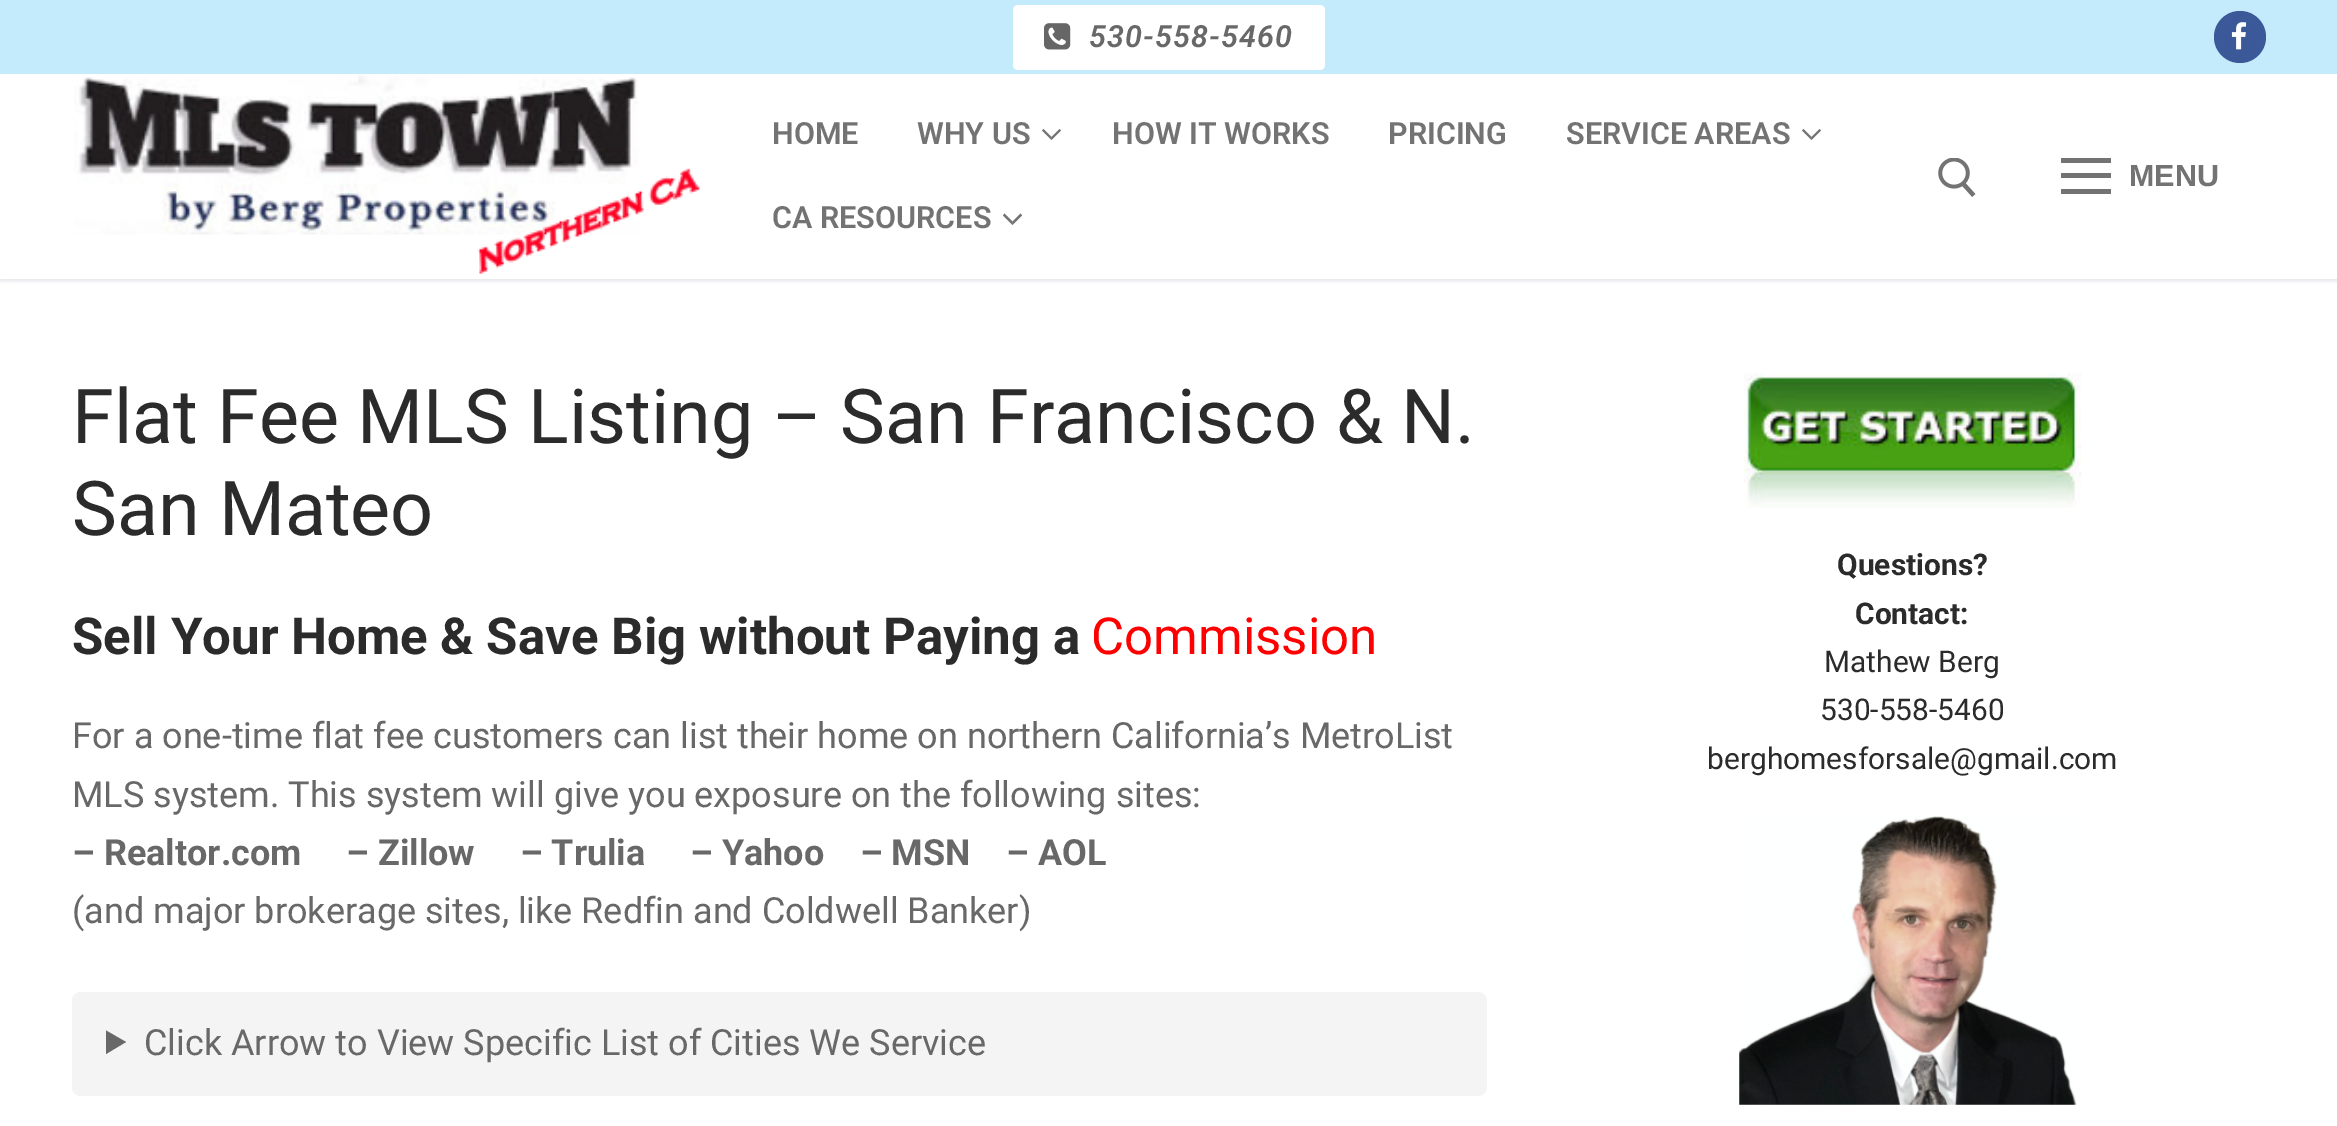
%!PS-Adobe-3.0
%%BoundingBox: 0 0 2337 1126
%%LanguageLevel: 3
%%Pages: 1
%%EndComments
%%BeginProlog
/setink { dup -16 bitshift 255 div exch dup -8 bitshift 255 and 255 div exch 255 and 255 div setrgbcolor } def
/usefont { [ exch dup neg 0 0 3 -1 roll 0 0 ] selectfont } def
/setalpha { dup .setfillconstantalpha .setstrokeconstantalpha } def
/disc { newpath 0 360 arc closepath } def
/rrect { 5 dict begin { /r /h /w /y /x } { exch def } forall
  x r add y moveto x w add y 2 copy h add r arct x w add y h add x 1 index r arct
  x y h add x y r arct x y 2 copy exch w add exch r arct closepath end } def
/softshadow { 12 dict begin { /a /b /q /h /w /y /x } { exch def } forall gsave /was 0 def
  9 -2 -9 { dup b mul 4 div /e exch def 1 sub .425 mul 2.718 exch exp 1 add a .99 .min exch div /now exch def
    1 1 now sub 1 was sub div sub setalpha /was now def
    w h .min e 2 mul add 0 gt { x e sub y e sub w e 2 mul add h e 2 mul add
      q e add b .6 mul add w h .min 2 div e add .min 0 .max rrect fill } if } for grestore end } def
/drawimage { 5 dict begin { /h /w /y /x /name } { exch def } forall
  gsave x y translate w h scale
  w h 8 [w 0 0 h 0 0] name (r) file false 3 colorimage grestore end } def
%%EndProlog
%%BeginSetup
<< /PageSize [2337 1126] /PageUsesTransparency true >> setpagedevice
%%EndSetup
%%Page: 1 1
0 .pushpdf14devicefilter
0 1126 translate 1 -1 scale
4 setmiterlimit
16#FFFFFF setink
0 0 2337 1126 rectfill
16#C4EBFC setink
0 0 2337 74 rectfill
16#FFFFFF setink
1013 5 312 65 5 rrect fill
(img1.raw) 1044 23 27 27 drawimage
/Roboto-SemiBoldItalic 30.5 usefont
16#686868 setink
1089 47 moveto 1.1 0 (530-558-5460) ashow
16#3B5998 setink
2240 37 26 disc fill
(img2.raw) 2231 22 16 28 drawimage
gsave
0 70 moveto 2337 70 lineto 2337 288 lineto 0 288 lineto closepath 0 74 moveto 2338 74 lineto 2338 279 lineto 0 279 lineto closepath eoclip newpath
16#E1E5EA setink
0 77 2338 204 0 2 1 softshadow
grestore
(img3.raw) 74 74 626 200 drawimage
/Roboto-SemiBold 30.5 usefont
16#737373 setink
772 144 moveto (HOME) show
917 144 moveto (WHY US) show
1051.5 140 moveto 1042 130.5 lineto 1043.5 129 lineto 1051.5 137 lineto closepath fill
0.55 setalpha
16#000000 setink
1061 130.5 moveto 1051.5 140 lineto 1051.5 137 lineto 1059.5 129 lineto closepath fill
1 setalpha
16#737373 setink
[
    [(HOW IT WORKS) 1112 144]
    [(PRICING) 1388 144]
    [(SERVICE AREAS) 1566 144]
] { aload pop moveto show } forall
1811.5 140 moveto 1802 130.5 lineto 1803.5 129 lineto 1811.5 137 lineto closepath fill
0.55 setalpha
16#000000 setink
1821 130.5 moveto 1811.5 140 lineto 1811.5 137 lineto 1819.5 129 lineto closepath fill
1 setalpha
16#737373 setink
772 228 moveto (CA RESOURCES) show
1012.5 225 moveto 1003 215.5 lineto 1004.5 213.5 lineto 1012.5 221.5 lineto closepath fill
0.55 setalpha
16#000000 setink
1022 215.5 moveto 1012.5 225 lineto 1012.5 221.5 lineto 1020.5 213.5 lineto closepath fill
1 setalpha
(img4.raw) 1938 158 38 39 drawimage
[
    [2061 173 50 5 16#737373]
    [2061 158 50 5 16#737373]
    [2061 189 50 5 16#737373]
] { aload pop setink rectfill } forall
/LiberationSans-Bold 30.5 usefont
2129 186 moveto (MENU) show
/Roboto-Regular 75.6 usefont
16#2B2B2B setink
72 443 moveto (Flat Fee MLS Listing – San Francisco & N.) show
72 535 moveto (San Mateo) show
/Roboto-Bold 51 usefont
72 654 moveto (Sell Your Home & Save Big without Paying a) show
/Roboto-Regular 51 usefont
16#FF0000 setink
1091 654 moveto (Commission) show
/Roboto-Regular 36 usefont
16#686868 setink
72 748 moveto (For a one-time flat fee customers can list their home on northern California’s MetroList) show
72 807 moveto (MLS system. This system will give you exposure on the following sites:) show
/Roboto-Bold 36 usefont
72 865 moveto (– Realtor.com     – Zillow     – Trulia     – Yahoo    – MSN    – AOL) show
/Roboto-Regular 36 usefont
72 923 moveto (\(and major brokerage sites, like Redfin and Coldwell Banker\)) show
16#F4F4F5 setink
72 992 1415 104 9 rrect fill
16#686868 setink
106 1030.5 moveto 126 1042 lineto 106 1054 lineto closepath fill
144 1055 moveto (Click Arrow to View Specific List of Cities We Service) show
(img5.raw) 1743 373 339 135 drawimage
/Roboto-Bold 29.9 usefont
16#2B2B2B setink
1837 575 moveto (Questions?) show
1855 624 moveto (Contact:) show
/Roboto-Regular 29.9 usefont
[
    [(Mathew Berg) 1824 672]
    [(530-558-5460) 1820 720]
    [(berghomesforsale@gmail.com) 1707 769]
] { aload pop moveto show } forall
(img6.raw) 1739 816 338 289 drawimage
.poppdf14devicefilter showpage
%%EOF
